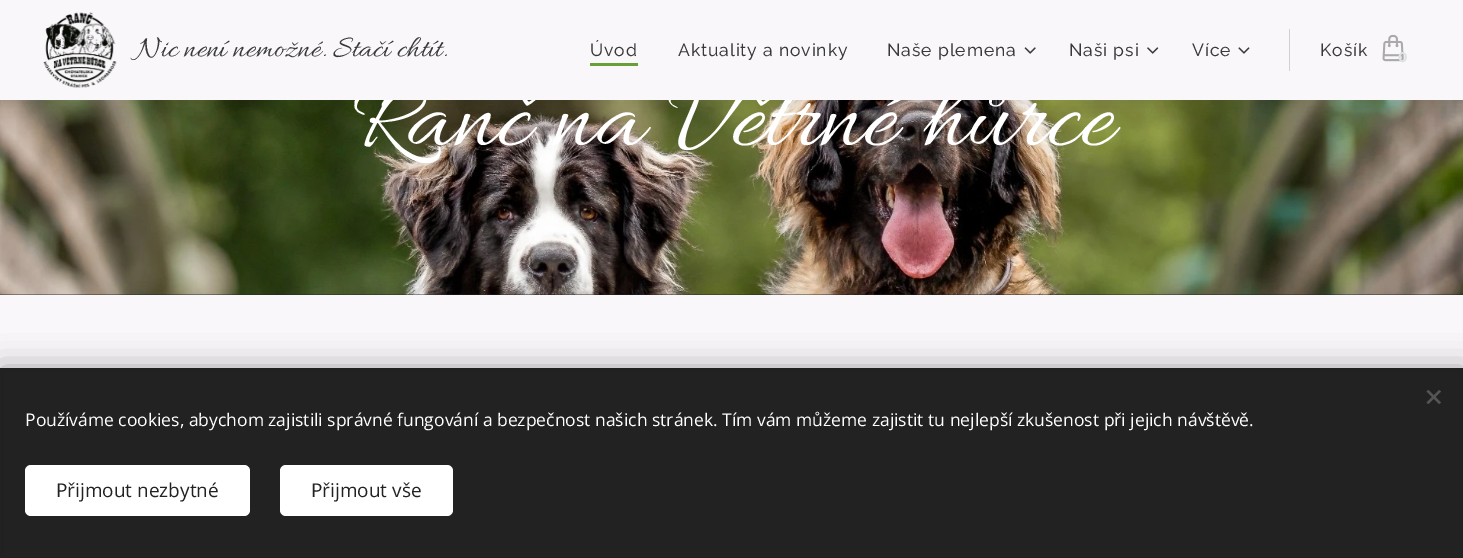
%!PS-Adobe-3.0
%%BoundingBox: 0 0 1463 558
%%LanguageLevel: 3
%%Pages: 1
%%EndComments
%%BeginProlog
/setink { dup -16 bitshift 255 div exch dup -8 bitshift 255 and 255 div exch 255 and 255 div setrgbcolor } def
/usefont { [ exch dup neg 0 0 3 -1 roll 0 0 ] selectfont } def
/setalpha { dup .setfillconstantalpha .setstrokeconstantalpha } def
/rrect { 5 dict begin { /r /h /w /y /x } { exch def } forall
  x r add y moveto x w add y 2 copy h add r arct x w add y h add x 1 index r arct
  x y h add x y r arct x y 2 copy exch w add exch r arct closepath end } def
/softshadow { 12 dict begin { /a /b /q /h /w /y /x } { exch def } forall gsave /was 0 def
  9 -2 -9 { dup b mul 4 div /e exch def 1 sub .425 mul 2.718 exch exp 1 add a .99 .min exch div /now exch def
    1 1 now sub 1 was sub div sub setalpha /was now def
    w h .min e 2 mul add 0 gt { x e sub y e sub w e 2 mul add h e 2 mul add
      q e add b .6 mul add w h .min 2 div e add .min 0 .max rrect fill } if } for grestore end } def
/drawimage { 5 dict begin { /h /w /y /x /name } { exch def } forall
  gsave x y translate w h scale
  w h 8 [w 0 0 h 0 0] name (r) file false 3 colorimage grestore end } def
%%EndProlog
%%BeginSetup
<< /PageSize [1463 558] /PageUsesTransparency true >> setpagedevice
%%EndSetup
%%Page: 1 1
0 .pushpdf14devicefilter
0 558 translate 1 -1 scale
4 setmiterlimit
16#272727 setink
0 0 1463 558 rectfill
(img6.raw) 0 100 1463 195 drawimage
16#000000 setink
0 6 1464 100 0 9.5 0.07 softshadow
/Allura-Regular 105 usefont
16#FFFFFF setink
351 144 moveto (Ranč na Větrné hůrce) show
16#F9F7FA setink
0 0 1463 100 rectfill
(img1.raw) 43 12 74 76 drawimage
/Allura-Regular 31.25 usefont
16#393939 setink
136 56 moveto (Nic není nemožné. Stačí chtít.) show
/Raleway-Regular 17.5 usefont
590 56 moveto 0.9 0 (Úvod) ashow
16#689F38 setink
590 63 48 3 rectfill
16#393939 setink
678 56 moveto 0.9 0 (Aktuality a novinky) ashow
887 56 moveto 0.9 0 (Naše plemena) ashow
(img2.raw) 1024 47 12 7 drawimage
1069 56 moveto 0.9 0 (Naši psi) ashow
(img3.raw) 1147 47 12 7 drawimage
1192 56 moveto 0.9 0 (Více) ashow
(img4.raw) 1238 47 12 7 drawimage
16#D1D1D1 setink
1289 29 1 42 rectfill
16#393939 setink
1320 56 moveto 0.9 0 (Košík) ashow
(img5.raw) 1382 34 22 28 drawimage
/Montserrat-Bold 14 usefont
16#E1E0E2 setink
1398 62 moveto (0) show
16#F9F7FA setink
0 295 1463 73 rectfill
16#000000 setink
0 368 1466 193 0 15.5 0.33 softshadow
16#222222 setink
4 372 1458 185 rectfill
16#555555 setink
1426.5 402.5 moveto 1439 390 lineto 1441 391.5 lineto 1428.5 404 lineto closepath fill
1428.5 390 moveto 1441 402.5 lineto 1439 404 lineto 1426.5 391.5 lineto closepath fill
/OpenSans-Regular 17.5 usefont
16#FFFFFF setink
25 426 moveto (Používáme cookies, abychom zajistili správné fungování a bezpečnost našich stránek. Tím vám můžeme zajistit tu nejlepší zkušenost při jejich návštěvě.) show
25 465 225 51 6 rrect fill
/OpenSans-Regular 19 usefont
16#222222 setink
56 497 moveto (Přijmout nezbytné) show
16#FFFFFF setink
280 465 173 51 6 rrect fill
16#222222 setink
311 497 moveto (Přijmout vše) show
.poppdf14devicefilter showpage
%%EOF
